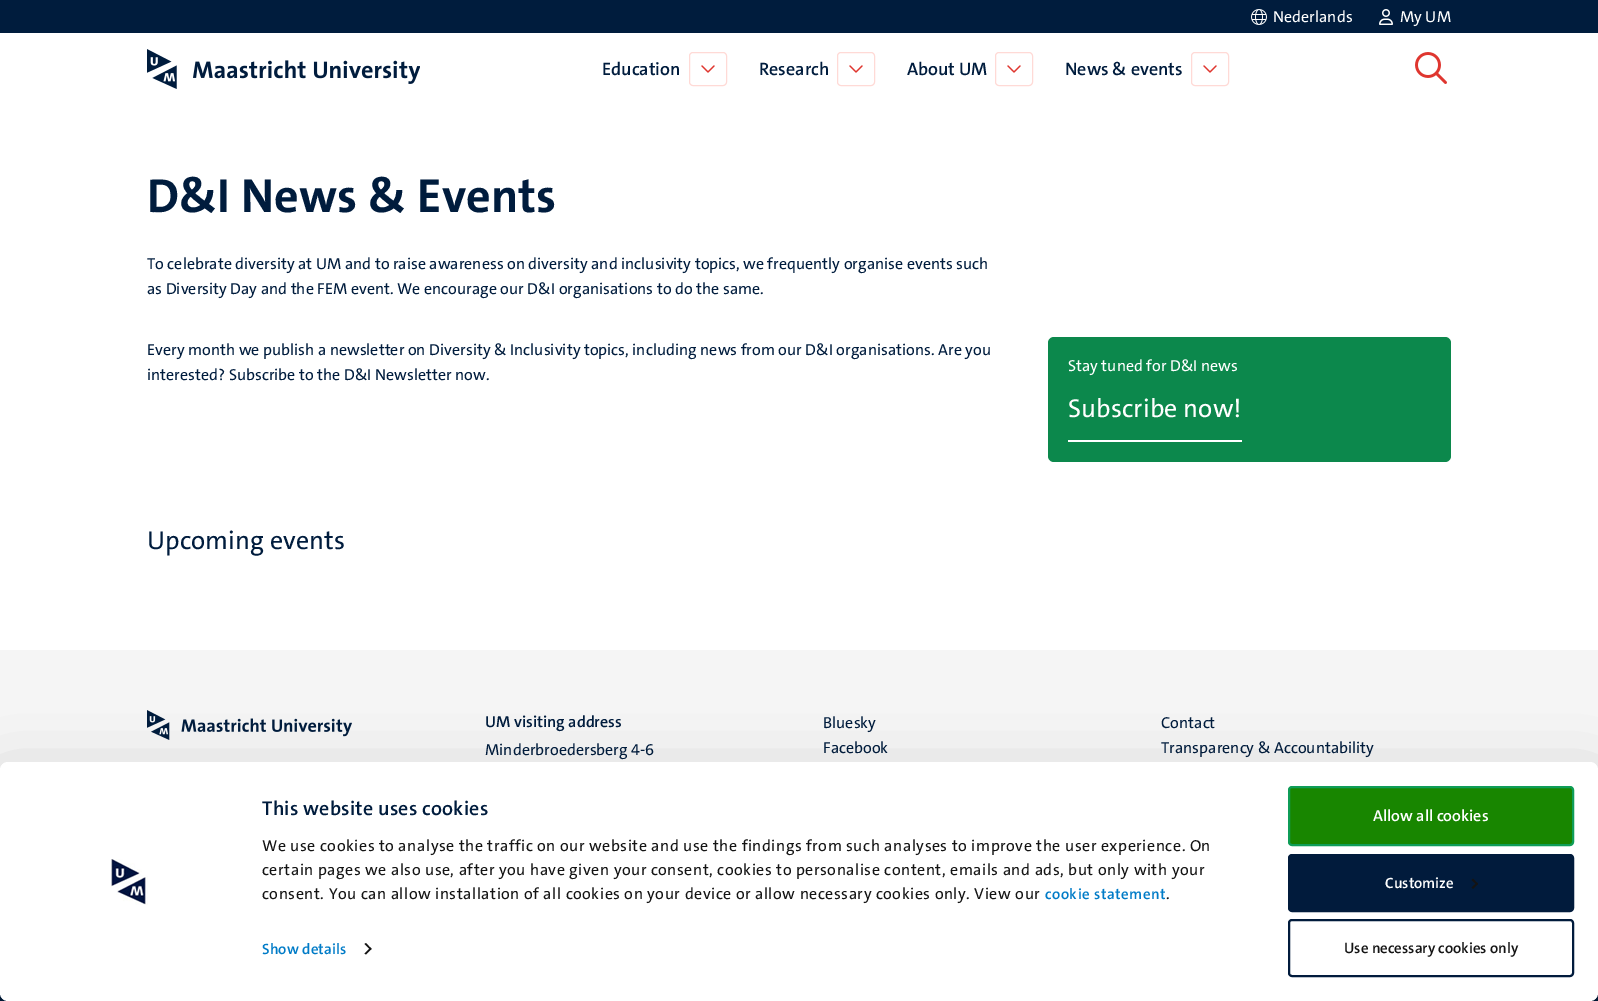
%!PS-Adobe-3.0
%%BoundingBox: 0 0 1598 1001
%%LanguageLevel: 3
%%Pages: 1
%%EndComments
%%BeginProlog
/setink { dup -16 bitshift 255 div exch dup -8 bitshift 255 and 255 div exch 255 and 255 div setrgbcolor } def
/usefont { [ exch dup neg 0 0 3 -1 roll 0 0 ] selectfont } def
/setalpha { dup .setfillconstantalpha .setstrokeconstantalpha } def
/rrect { 5 dict begin { /r /h /w /y /x } { exch def } forall
  x r add y moveto x w add y 2 copy h add r arct x w add y h add x 1 index r arct
  x y h add x y r arct x y 2 copy exch w add exch r arct closepath end } def
/softshadow { 12 dict begin { /a /b /q /h /w /y /x } { exch def } forall gsave /was 0 def
  9 -2 -9 { dup b mul 4 div /e exch def 1 sub .425 mul 2.718 exch exp 1 add a .99 .min exch div /now exch def
    1 1 now sub 1 was sub div sub setalpha /was now def
    w h .min e 2 mul add 0 gt { x e sub y e sub w e 2 mul add h e 2 mul add
      q e add b .6 mul add w h .min 2 div e add .min 0 .max rrect fill } if } for grestore end } def
/drawimage { 5 dict begin { /h /w /y /x /name } { exch def } forall
  gsave x y translate w h scale
  w h 8 [w 0 0 h 0 0] name (r) file false 3 colorimage grestore end } def
%%EndProlog
%%BeginSetup
<< /PageSize [1598 1001] /PageUsesTransparency true >> setpagedevice
%%EndSetup
%%Page: 1 1
0 .pushpdf14devicefilter
0 1001 translate 1 -1 scale
4 setmiterlimit
16#FFFFFF setink
0 0 1598 1001 rectfill
16#001C3D setink
0 0 1598 33 rectfill
(img1.raw) 1251 9 16 16 drawimage
/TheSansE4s-Medium 16 usefont
16#FFFFFF setink
1273 22 moveto (Nederlands) show
(img2.raw) 1379 9 14 16 drawimage
1400 22 moveto (My UM) show
(img3.raw) 147 49 273 40 drawimage
/TheSansE4s-SemiBold 18 usefont
16#001C3D setink
602 75 moveto (Education) show
16#FFDAD6 setink
689.5 52.5 37 33 3.5 rrect stroke
(img4.raw) 701 65 14 8 drawimage
16#001C3D setink
759 75 moveto (Research) show
16#FFDAD6 setink
837.5 52.5 37 33 3.5 rrect stroke
(img4.raw) 849 65 14 8 drawimage
16#001C3D setink
907 75 moveto (About UM) show
16#FFDAD6 setink
995.5 52.5 37 33 3.5 rrect stroke
(img4.raw) 1007 65 14 8 drawimage
16#001C3D setink
1065 75 moveto (News & events) show
16#FFDAD6 setink
1191.5 52.5 37 33 3.5 rrect stroke
(img4.raw) 1203 65 14 8 drawimage
(img5.raw) 1415 52 32 32 drawimage
/TheSansE4s-Bold 48 usefont
16#001C3D setink
147 212 moveto 0.1 0 (D&I News & Events) ashow
/TheSansE4s-Medium 16 usefont
[
    [(To celebrate diversity at UM and to raise awareness on diversity and inclusivity topics, we frequently organise events such) 147 269]
    [(as Diversity Day and the FEM event. We encourage our D&I organisations to do the same.) 147 294]
    [(Every month we publish a newsletter on Diversity & Inclusivity topics, including news from our D&I organisations. Are you) 147 355]
    [(interested? Subscribe to the D&I Newsletter now.) 147 380]
] { aload pop moveto show } forall
16#0C884C setink
1048 337 403 125 6 rrect fill
16#FFFFFF setink
1068 371 moveto (Stay tuned for D&I news) show
1068 440 174 2 rectfill
/TheSansE4s-Medium 26 usefont
1068 417 moveto 0.1 0 (Subscribe now!) ashow
16#001C3D setink
147 549 moveto 0.1 0 (Upcoming events) ashow
16#F5F5F5 setink
0 650 1598 120 rectfill
16#001C3D setink
0 993 1598 8 rectfill
(img6.raw) 147 710 205 30 drawimage
/TheSansE4s-SemiBold 16 usefont
485 727 moveto (UM visiting address) show
/TheSansE4s-Medium 16 usefont
[
    [(Minderbroedersberg 4-6) 485 755]
    [(Bluesky) 823 728]
    [(Facebook) 823 753]
    [(Contact) 1161 728]
    [(Transparency & Accountability) 1161 753]
] { aload pop moveto show } forall
16#000000 setink
0 792 1598 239 8 35 0.3 softshadow
16#FFFFFF setink
0 762 1598 239 8 rrect fill
(img7.raw) 110 859 38 46 drawimage
/TheSansE4s-SemiBold 20 usefont
16#001C3D setink
262 815 moveto 0.25 0 (This website uses cookies) ashow
/TheSansE4s-Medium 16 usefont
16#141414 setink
262 851 moveto 0.5 0 (We use cookies to analyse the traffic on our website and use the findings from such analyses to improve the user experience. On) ashow
262 875 moveto 0.5 0 (certain pages we also use, after you have given your consent, cookies to personalise content, emails and ads, but only with your) ashow
262 899 moveto 0.5 0 (consent. You can allow installation of all cookies on your device or allow necessary cookies only. View our) ashow
/TheSansE4s-SemiBold 15 usefont
16#007BC7 setink
1045 899 moveto 0.5 0 (cookie statement) ashow
/TheSansE4s-Medium 16 usefont
16#141414 setink
1166 899 moveto 0.5 0 (.) ashow
/TheSansE4s-SemiBold 15 usefont
16#007BC7 setink
262 954 moveto 0.1 0 (Show details) ashow
16#141414 setink
366 943 moveto 371.5 949 lineto 370.5 950 lineto 364.5 944 lineto closepath fill
370.5 947.5 moveto 371.5 949 lineto 366 954.5 lineto 364.5 953.5 lineto closepath fill
16#188600 setink
1289 787 284 58 3 rrect gsave fill grestore
16#0F9D58 setink
2 setlinewidth
stroke
/TheSansE4s-SemiBold 16 usefont
16#FFFFFF setink
1373 821 moveto (Allow all cookies) show
16#011B3C setink
1289 855 284 56 3 rrect gsave fill grestore
stroke
/TheSansE4s-SemiBold 15 usefont
16#FFFFFF setink
1385 888 moveto (Customize) show
16#141414 setink
1473 878.5 moveto 1478 884 lineto 1477 885 lineto 1471.5 880 lineto closepath fill
1477 882.5 moveto 1478 884 lineto 1473 889 lineto 1471.5 887.5 lineto closepath fill
16#011B3C setink
1289 920 284 56 3 rrect stroke
16#141414 setink
1344 953 moveto (Use necessary cookies only) show
.poppdf14devicefilter showpage
%%EOF
